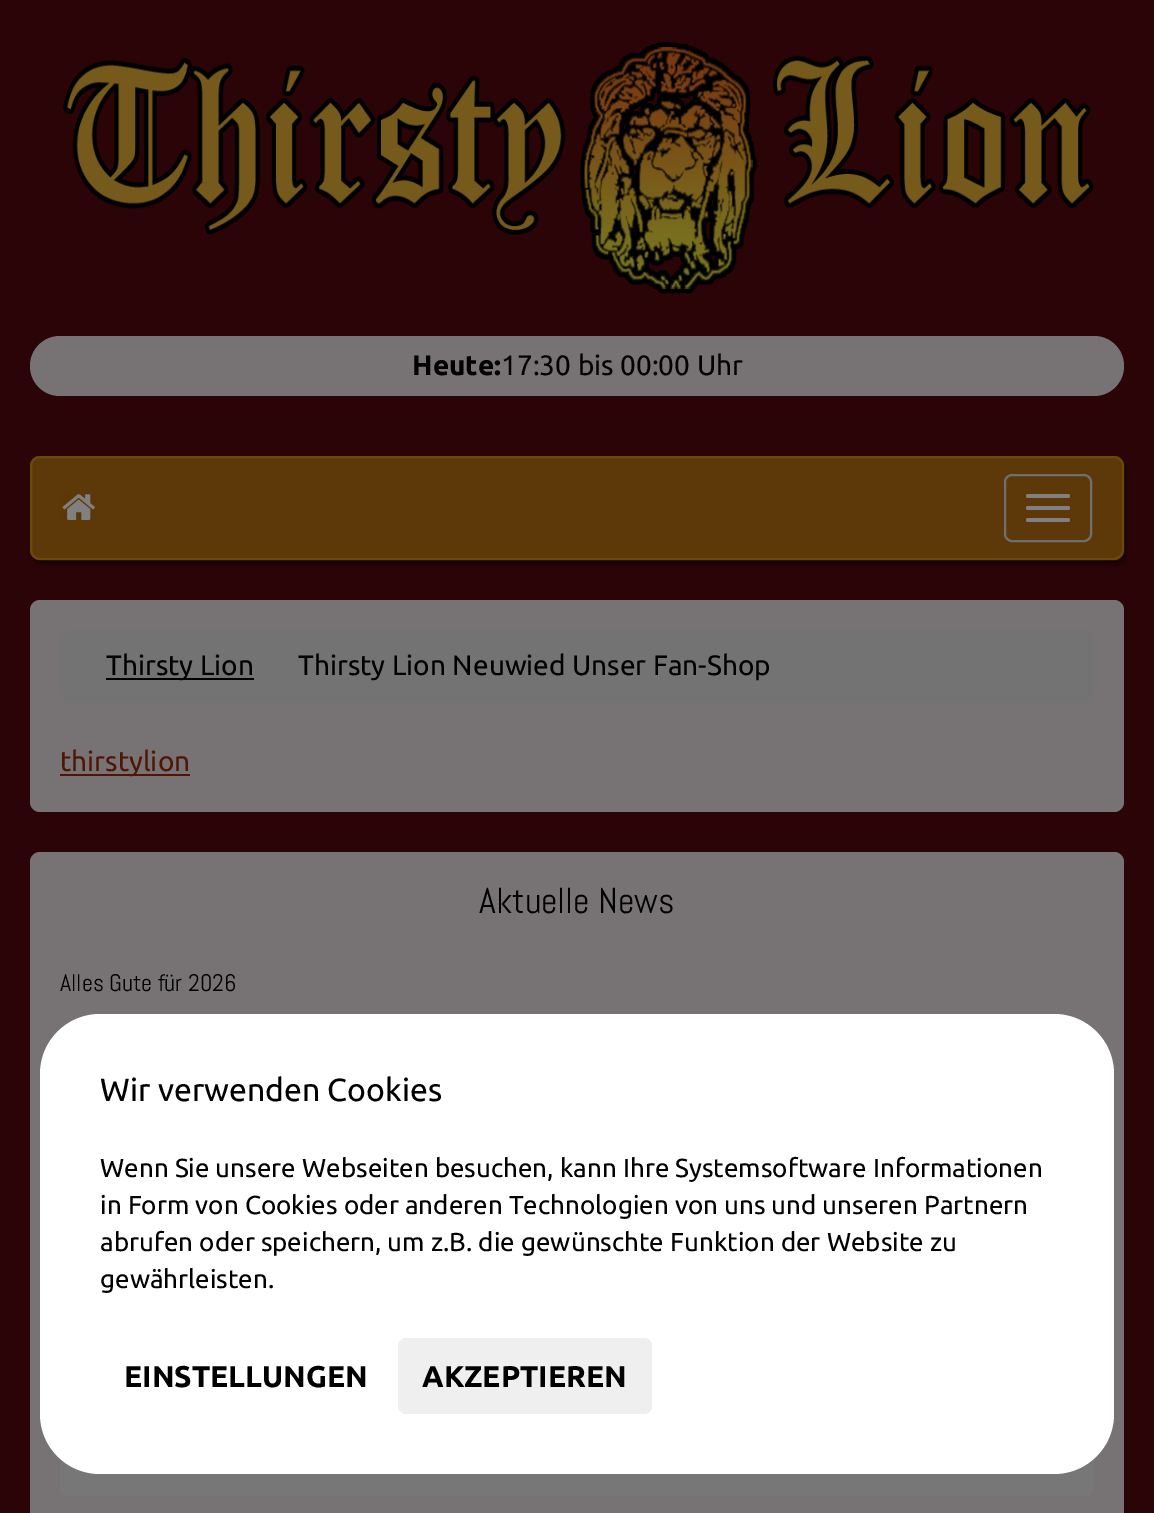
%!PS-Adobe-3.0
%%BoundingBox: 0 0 1154 1513
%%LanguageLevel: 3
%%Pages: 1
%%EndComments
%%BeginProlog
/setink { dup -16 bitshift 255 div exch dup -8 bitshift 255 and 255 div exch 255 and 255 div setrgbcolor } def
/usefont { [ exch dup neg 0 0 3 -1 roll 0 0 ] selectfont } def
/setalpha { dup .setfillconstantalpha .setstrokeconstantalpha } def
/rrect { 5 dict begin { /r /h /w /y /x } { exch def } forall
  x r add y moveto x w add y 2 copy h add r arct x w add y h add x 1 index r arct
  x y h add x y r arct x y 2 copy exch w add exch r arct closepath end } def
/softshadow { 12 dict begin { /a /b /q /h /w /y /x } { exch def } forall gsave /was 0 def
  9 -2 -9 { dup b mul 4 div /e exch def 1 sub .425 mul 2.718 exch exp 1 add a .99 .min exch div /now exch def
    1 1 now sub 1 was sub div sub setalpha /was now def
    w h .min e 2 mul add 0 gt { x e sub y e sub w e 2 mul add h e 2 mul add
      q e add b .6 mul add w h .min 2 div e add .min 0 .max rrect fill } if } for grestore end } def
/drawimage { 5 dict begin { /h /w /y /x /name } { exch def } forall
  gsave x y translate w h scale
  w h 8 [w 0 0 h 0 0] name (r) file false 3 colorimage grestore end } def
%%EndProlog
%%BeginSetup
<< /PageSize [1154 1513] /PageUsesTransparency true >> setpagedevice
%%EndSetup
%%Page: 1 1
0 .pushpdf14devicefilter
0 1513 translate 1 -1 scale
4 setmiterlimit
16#2A0406 setink
0 0 1154 1513 rectfill
(img1.raw) 63 42 1031 252 drawimage
16#777374 setink
30 336 1094 60 30 rrect fill
/Ubuntu-Bold 28 usefont
16#000000 setink
412 375 moveto (Heute:) show
/Ubuntu-Regular 28 usefont
501 375 moveto (17:30 bis 00:00 Uhr) show
gsave
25 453 moveto 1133 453 lineto 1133 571 lineto 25 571 lineto closepath 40 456 moveto 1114 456 lineto 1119.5 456 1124 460.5 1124 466 curveto 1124 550 lineto 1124 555.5 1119.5 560 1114 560 curveto 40 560 lineto 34.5 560 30 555.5 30 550 curveto 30 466 lineto 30 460.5 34.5 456 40 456 curveto closepath eoclip newpath
32 460 1094 104 10 2 0.5 softshadow
grestore
0.7 setalpha
16#724F0A setink
30 456 1094 104 10 rrect fill
2 setlinewidth
31 457 1092 102 9 rrect stroke
1 setalpha
(img2.raw) 62 494 33 26 drawimage
16#6F6F6F setink
1005 475 86 66 7 rrect stroke
16#808080 setink
1026 494 44 4 2 rrect fill
1026 506 44 4 2 rrect fill
1026 518 44 4 2 rrect fill
16#777374 setink
30 600 1094 212 10 rrect fill
16#737373 setink
60 630 1034 72 8 rrect fill
16#000000 setink
106 678 148 2 rectfill
106 675 moveto (Thirsty Lion) show
298 675 moveto (Thirsty Lion Neuwied Unser Fan-Shop) show
16#501507 setink
60 774 130 2 rectfill
60 771 moveto (thirstylion) show
16#777374 setink
30 852 1094 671 10 rrect fill
/Abel-Regular 36 usefont
16#000000 setink
479 913 moveto (Aktuelle News) show
/Abel-Regular 24 usefont
60 991 moveto (Alles Gute für 2026) show
16#777777 setink
60 1428 1034 68 8 rrect fill
16#FFFFFF setink
40 1014 1074 460 60 rrect fill
/Ubuntu-Regular 32 usefont
16#000000 setink
100 1101 moveto (Wir verwenden Cookies) show
/Ubuntu-Regular 26 usefont
[
    [(Wenn Sie unsere Webseiten besuchen, kann Ihre Systemsoftware Informationen) 100 1177]
    [(in Form von Cookies oder anderen Technologien von uns und unseren Partnern) 100 1214]
    [(abrufen oder speichern, um z.B. die gewünschte Funktion der Website zu) 100 1251]
    [(gewährleisten.) 100 1288]
] { aload pop moveto show } forall
/Ubuntu-Bold 30 usefont
124 1387 moveto (EINSTELLUNGEN) show
16#EFEFEF setink
398 1338 254 76 8 rrect fill
16#000000 setink
422 1387 moveto (AKZEPTIEREN) show
.poppdf14devicefilter showpage
%%EOF
